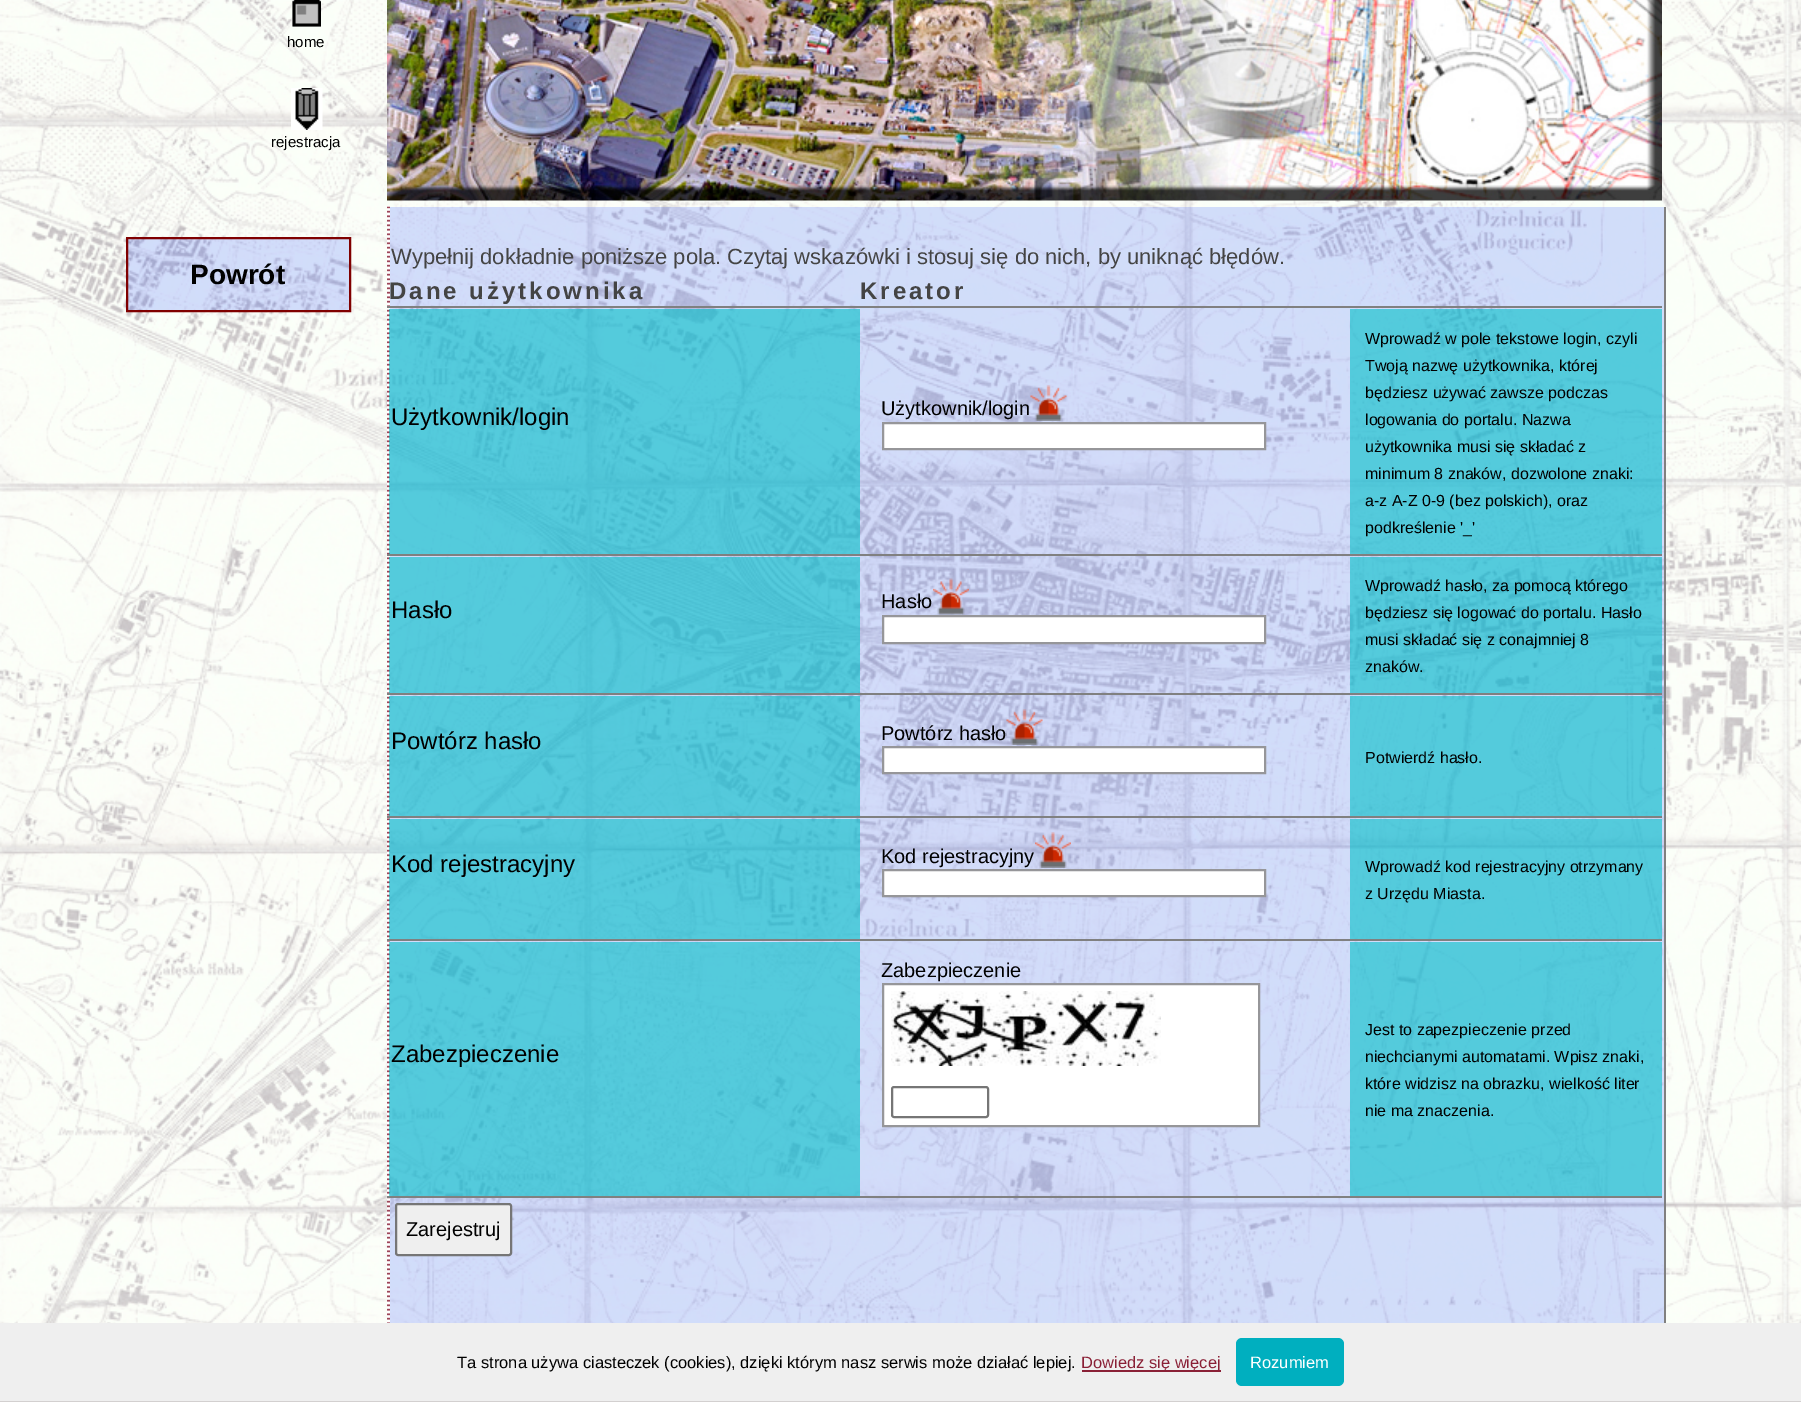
%!PS-Adobe-3.0
%%BoundingBox: 0 0 1801 1402
%%LanguageLevel: 3
%%Pages: 1
%%EndComments
%%BeginProlog
/setink { dup -16 bitshift 255 div exch dup -8 bitshift 255 and 255 div exch 255 and 255 div setrgbcolor } def
/usefont { [ exch dup neg 0 0 3 -1 roll 0 0 ] selectfont } def
/setalpha { dup .setfillconstantalpha .setstrokeconstantalpha } def
/rrect { 5 dict begin { /r /h /w /y /x } { exch def } forall
  x r add y moveto x w add y 2 copy h add r arct x w add y h add x 1 index r arct
  x y h add x y r arct x y 2 copy exch w add exch r arct closepath end } def
/drawimage { 5 dict begin { /h /w /y /x /name } { exch def } forall
  gsave x y translate w h scale
  w h 8 [w 0 0 h 0 0] name (r) file false 3 colorimage grestore end } def
%%EndProlog
%%BeginSetup
<< /PageSize [1801 1402] /PageUsesTransparency true >> setpagedevice
%%EndSetup
%%Page: 1 1
0 .pushpdf14devicefilter
0 1402 translate 1 -1 scale
4 setmiterlimit
16#FFFFFF setink
0 0 1801 1402 rectfill
(img1.raw) 0 0 1801 1323 drawimage
(img2.raw) 292 0 29 27 drawimage
(img3.raw) 292 0 29 27 drawimage
/LiberationSans-Regular 15 usefont
16#000000 setink
287 47 moveto (home) show
(img4.raw) 291 88 32 42 drawimage
271 147 moveto (rejestracja) show
(img5.raw) 387 0 1275 201 drawimage
0.2 setalpha
16#2B53FF setink
127 238 moveto 350 238 lineto 350 311 lineto 127 311 lineto closepath fill
1 setalpha
16#800000 setink
2 setlinewidth
127 238 moveto 350 238 lineto 350 311 lineto 127 311 lineto closepath stroke
/LiberationSans-Bold 28 usefont
16#000000 setink
190 284 moveto (Powrót) show
0.2 setalpha
16#2B53FF setink
390 207 1274 1116 rectfill
1 setalpha
(img6.raw) 387 206 3 1117 drawimage
16#808080 setink
1664 207 2 1116 rectfill
/LiberationSans-Regular 22 usefont
16#444444 setink
391 264 moveto (Wypełnij dokładnie poniższe pola. Czytaj wskazówki i stosuj się do nich, by uniknąć błędów.) show
/LiberationSans-Bold 24 usefont
389 299 moveto 3 0 (Dane użytkownika) ashow
860 299 moveto 3 0 (Kreator) ashow
0.6 setalpha
16#00BFC8 setink
389 309 471 245 rectfill
/LiberationSans-Regular 24 usefont
1 setalpha
16#000000 setink
391 425 moveto (Użytkownik/login) show
/LiberationSans-Regular 20 usefont
881 415 moveto (Użytkownik/login) show
(img7.raw) 1030 385 37 36 drawimage
16#FFFFFF setink
883 423 moveto 1265 423 lineto 1265 449 lineto 883 449 lineto closepath gsave fill grestore
16#969699 setink
stroke
0.6 setalpha
16#00BFC8 setink
1350 309 312 245 rectfill
1 setalpha
16#808080 setink
387 306 1275 2 rectfill
/LiberationSans-Regular 16 usefont
16#000000 setink
[
    [(Wprowadź w pole tekstowe login, czyli) 1365 344]
    [(Twoją nazwę użytkownika, której) 1365 371]
    [(będziesz używać zawsze podczas) 1365 398]
    [(logowania do portalu. Nazwa) 1365 425]
    [(użytkownika musi się składać z) 1365 452]
    [(minimum 8 znaków, dozwolone znaki:) 1365 479]
    [(a-z A-Z 0-9 \(bez polskich\), oraz) 1365 506]
    [(podkreślenie '_') 1365 533]
] { aload pop moveto show } forall
0.6 setalpha
16#00BFC8 setink
389 557 471 136 rectfill
/LiberationSans-Regular 24 usefont
1 setalpha
16#000000 setink
391 618 moveto (Hasło) show
/LiberationSans-Regular 20 usefont
881 608 moveto (Hasło) show
(img8.raw) 933 578 36 37 drawimage
16#FFFFFF setink
883 616 moveto 1265 616 lineto 1265 643 lineto 883 643 lineto closepath gsave fill grestore
16#969699 setink
stroke
0.6 setalpha
16#00BFC8 setink
1350 557 312 136 rectfill
1 setalpha
16#808080 setink
387 554 1275 2 rectfill
/LiberationSans-Regular 16 usefont
16#000000 setink
[
    [(Wprowadź hasło, za pomocą którego) 1365 591]
    [(będziesz się logować do portalu. Hasło) 1365 618]
    [(musi składać się z conajmniej 8) 1365 645]
    [(znaków.) 1365 672]
] { aload pop moveto show } forall
0.6 setalpha
16#00BFC8 setink
389 696 471 120 rectfill
/LiberationSans-Regular 24 usefont
1 setalpha
16#000000 setink
391 749 moveto (Powtórz hasło) show
/LiberationSans-Regular 20 usefont
881 740 moveto (Powtórz hasło) show
(img9.raw) 1006 709 37 36 drawimage
16#FFFFFF setink
883 747 moveto 1265 747 lineto 1265 773 lineto 883 773 lineto closepath gsave fill grestore
16#969699 setink
stroke
0.6 setalpha
16#00BFC8 setink
1350 696 312 120 rectfill
1 setalpha
16#808080 setink
387 693 1275 2 rectfill
/LiberationSans-Regular 16 usefont
16#000000 setink
1365 763 moveto (Potwierdź hasło.) show
0.6 setalpha
16#00BFC8 setink
389 819 471 120 rectfill
/LiberationSans-Regular 24 usefont
1 setalpha
16#000000 setink
391 872 moveto (Kod rejestracyjny) show
/LiberationSans-Regular 20 usefont
881 863 moveto (Kod rejestracyjny) show
(img10.raw) 1035 832 36 36 drawimage
16#FFFFFF setink
883 870 moveto 1265 870 lineto 1265 896 lineto 883 896 lineto closepath gsave fill grestore
16#969699 setink
stroke
0.6 setalpha
16#00BFC8 setink
1350 819 312 120 rectfill
1 setalpha
16#808080 setink
387 816 1275 2 rectfill
/LiberationSans-Regular 16 usefont
16#000000 setink
1365 872 moveto (Wprowadź kod rejestracyjny otrzymany) show
1365 899 moveto (z Urzędu Miasta.) show
/LiberationSans-Regular 20 usefont
881 977 moveto (Zabezpieczenie) show
16#FFFFFF setink
883 984 moveto 1259 984 lineto 1259 1126 lineto 883 1126 lineto closepath gsave fill grestore
16#969699 setink
stroke
(img11.raw) 891 991 270 75 drawimage
16#767676 setink
892 1087 96 30 2 rrect stroke
0.6 setalpha
16#00BFC8 setink
389 942 471 254 rectfill
/LiberationSans-Regular 24 usefont
1 setalpha
16#000000 setink
391 1062 moveto (Zabezpieczenie) show
0.6 setalpha
[
    [1350 942 312 254 16#00BFC8]
] { aload pop setink rectfill } forall
1 setalpha
[
    [387 939 1275 2 16#808080]
    [387 1196 1275 2 16#808080]
] { aload pop setink rectfill } forall
/LiberationSans-Regular 16 usefont
16#000000 setink
[
    [(Jest to zapezpieczenie przed) 1365 1035]
    [(niechcianymi automatami. Wpisz znaki,) 1365 1062]
    [(które widzisz na obrazku, wielkość liter) 1365 1089]
    [(nie ma znaczenia.) 1365 1116]
] { aload pop moveto show } forall
16#EFEFEF setink
396 1204 115 51 2 rrect gsave fill grestore
16#767676 setink
stroke
/LiberationSans-Regular 20 usefont
16#000000 setink
406 1236 moveto (Zarejestruj) show
16#EFEFEF setink
0 1323 1801 78 rectfill
16#D3D0D0 setink
0 1401 1801 1 rectfill
/LiberationSans-Regular 16.5 usefont
16#000000 setink
457 1368 moveto (Ta strona używa ciasteczek \(cookies\), dzięki którym nasz serwis może działać lepiej.) show
16#8A2036 setink
1082 1370 139 2 rectfill
1081 1368 moveto (Dowiedz się więcej) show
16#00AFBF setink
1236 1338 108 48 6 rrect fill
16#FFFFFF setink
1250 1368 moveto (Rozumiem) show
.poppdf14devicefilter showpage
%%EOF
